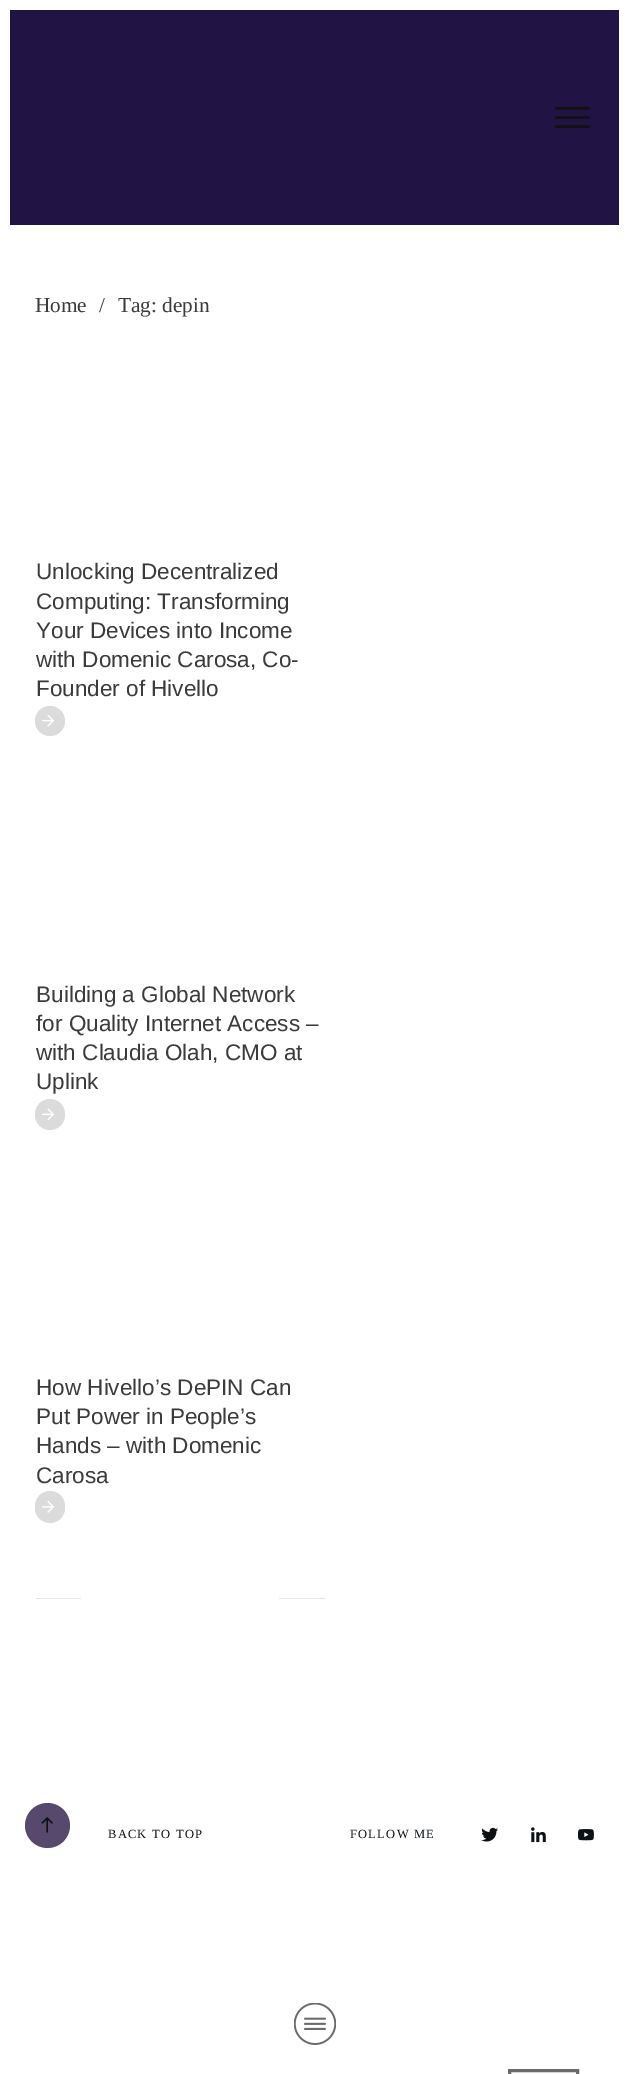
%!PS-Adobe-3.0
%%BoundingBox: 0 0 628 2074
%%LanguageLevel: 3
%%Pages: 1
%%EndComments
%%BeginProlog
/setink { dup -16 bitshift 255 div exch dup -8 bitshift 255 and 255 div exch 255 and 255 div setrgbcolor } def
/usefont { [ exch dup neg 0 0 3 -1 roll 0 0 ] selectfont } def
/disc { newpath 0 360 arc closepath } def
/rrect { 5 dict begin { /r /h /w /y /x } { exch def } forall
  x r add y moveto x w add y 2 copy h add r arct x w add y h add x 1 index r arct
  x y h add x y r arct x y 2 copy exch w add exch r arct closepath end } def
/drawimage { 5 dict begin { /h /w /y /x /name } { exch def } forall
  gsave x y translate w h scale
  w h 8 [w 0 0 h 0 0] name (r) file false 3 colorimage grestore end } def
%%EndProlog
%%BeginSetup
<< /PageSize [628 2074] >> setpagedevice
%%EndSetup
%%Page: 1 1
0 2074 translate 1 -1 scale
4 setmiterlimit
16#FFFFFF setink
0 0 628 2074 rectfill
16#211343 setink
10 10 609 215 rectfill
(img1.raw) 555 106 35 23 drawimage
/LiberationSerif-Regular 21.25 usefont
16#3B3B3B setink
[
    [(Home) 35 312]
    [(/) 99 312]
    [(Tag: depin) 118 312]
] { aload pop moveto show } forall
/LiberationSans-Regular 22.5 usefont
[
    [(Unlocking Decentralized) 36 579]
    [(Computing: Transforming) 36 609]
    [(Your Devices into Income) 36 638]
    [(with Domenic Carosa, Co-) 36 667]
    [(Founder of Hivello) 36 696]
] { aload pop moveto show } forall
16#DBDBDB setink
50 721 15 disc fill
(img2.raw) 42 714 12 13 drawimage
16#3B3B3B setink
[
    [(Building a Global Network) 36 1002]
    [(for Quality Internet Access –) 36 1031]
    [(with Claudia Olah, CMO at) 36 1060]
    [(Uplink) 36 1089]
] { aload pop moveto show } forall
16#DBDBDB setink
35 1099 30 31 15 rrect fill
(img3.raw) 42 1108 12 13 drawimage
16#3B3B3B setink
[
    [(How Hivello’s DePIN Can) 36 1395]
    [(Put Power in People’s) 36 1424]
    [(Hands – with Domenic) 36 1453]
    [(Carosa) 36 1483]
] { aload pop moveto show } forall
16#DBDBDB setink
35 1491 30 32 15 rrect fill
(img4.raw) 42 1501 12 12 drawimage
16#E6E6E6 setink
36 1598 45 1 rectfill
279 1598 47 1 rectfill
16#57496E setink
47.5 1825.5 22.5 disc fill
(img5.raw) 41 1817 12 16 drawimage
/LiberationSerif-Regular 12.5 usefont
16#0C1115 setink
108 1838 moveto 1.25 0 (BACK TO TOP) ashow
350 1838 moveto 1.25 0 (FOLLOW ME) ashow
(img6.raw) 481 1827 17 15 drawimage
(img7.raw) 531 1827 15 16 drawimage
(img8.raw) 578 1829 16 12 drawimage
(img9.raw) 294 2003 42 42 drawimage
16#6A6B6C setink
3 setlinewidth
509.5 2070.5 68 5 rectstroke
showpage
%%EOF
